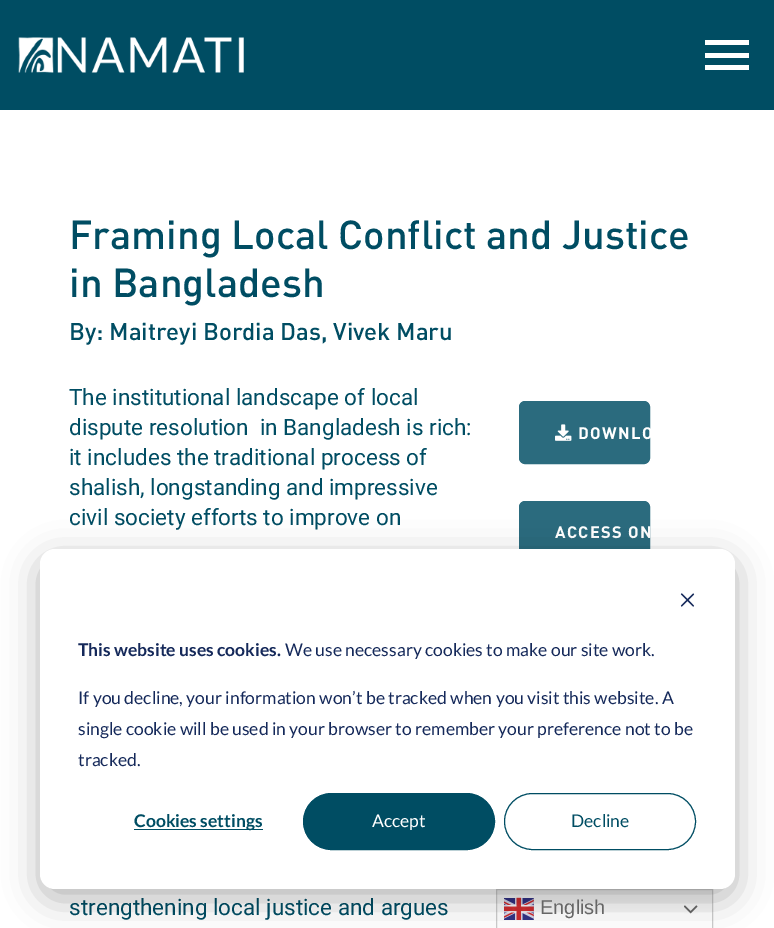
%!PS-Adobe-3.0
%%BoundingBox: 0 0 774 928
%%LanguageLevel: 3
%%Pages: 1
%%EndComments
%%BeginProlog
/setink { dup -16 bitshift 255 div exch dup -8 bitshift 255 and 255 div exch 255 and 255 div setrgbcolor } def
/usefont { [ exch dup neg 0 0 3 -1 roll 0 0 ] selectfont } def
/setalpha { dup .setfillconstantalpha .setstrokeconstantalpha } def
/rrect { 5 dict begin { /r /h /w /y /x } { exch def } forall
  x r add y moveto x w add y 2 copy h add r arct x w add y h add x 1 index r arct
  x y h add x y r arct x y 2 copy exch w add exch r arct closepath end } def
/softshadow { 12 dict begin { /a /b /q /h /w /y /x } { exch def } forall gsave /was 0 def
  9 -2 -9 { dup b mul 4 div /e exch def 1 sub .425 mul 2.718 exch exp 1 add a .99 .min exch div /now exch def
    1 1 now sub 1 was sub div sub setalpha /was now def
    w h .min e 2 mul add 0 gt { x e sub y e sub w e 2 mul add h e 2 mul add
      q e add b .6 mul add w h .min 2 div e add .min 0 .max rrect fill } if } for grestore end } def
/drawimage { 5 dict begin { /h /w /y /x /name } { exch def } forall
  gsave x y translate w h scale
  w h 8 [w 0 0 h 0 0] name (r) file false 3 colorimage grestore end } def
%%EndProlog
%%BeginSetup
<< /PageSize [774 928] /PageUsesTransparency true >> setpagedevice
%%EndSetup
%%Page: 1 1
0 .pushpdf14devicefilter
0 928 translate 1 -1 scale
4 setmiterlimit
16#FFFFFF setink
0 0 774 928 rectfill
16#004D63 setink
0 0 774 110 rectfill
(img1.raw) 18 37 226 36 drawimage
[
    [705 40 44 5 16#FFFFFF]
    [705 53 44 5 16#FFFFFF]
    [705 65 44 5 16#FFFFFF]
] { aload pop setink rectfill } forall
/DIN-Medium 40 usefont
16#004D63 setink
69 249 moveto (Framing Local Conflict and Justice) show
69 297 moveto (in Bangladesh) show
/DIN-Medium 24 usefont
69 340 moveto (By: Maitreyi Bordia Das, Vivek Maru) show
/Roboto-Regular 22.5 usefont
[
    [(The institutional landscape of local) 69 405]
    [(dispute resolution  in Bangladesh is rich:) 69 435]
    [(it includes the traditional process of) 69 465]
    [(shalish, longstanding and impressive) 69 495]
    [(civil society efforts to improve on) 69 525]
    [(strengthening local justice and argues) 69 915]
] { aload pop moveto show } forall
16#2B6B7E setink
519.5 401.5 130 62 5.5 rrect gsave fill grestore
stroke
(img2.raw) 555 424 17 17 drawimage
/DIN-Bold 16.5 usefont
16#FFFFFF setink
578 439 moveto 1.25 0 (DOWNLO) ashow
16#2B6B7E setink
519.5 501.5 130 61 5.5 rrect gsave fill grestore
stroke
16#FFFFFF setink
555 538 moveto 1.25 0 (ACCESS ON) ashow
gsave 497 890 moveto 712 890 lineto 712 913 lineto 497 913 lineto closepath clip newpath
<< /ShadingType 2 /ColorSpace /DeviceRGB /Coords [604 889 604 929] /Extend [true true] /Function << /FunctionType 3 /Domain [0 1] /Functions [<< /FunctionType 2 /Domain [0 1] /C0 [0.937 0.937 0.937] /C1 [1 1 1] /N 1 >> << /FunctionType 2 /Domain [0 1] /C0 [1 1 1] /C1 [1 1 1] /N 1 >>] /Bounds [0.7] /Encode [0 1 0 1] >> >> shfill grestore
16#CCCCCC setink
496.5 889.5 216 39 rectstroke
(img4.raw) 504 897 30 23 drawimage
(img5.raw) 684 905 14 9 drawimage
16#000000 setink
40 559 695 340 15 17.5 0.28 softshadow
16#FFFFFF setink
40 549 695 340 15 rrect fill
(img3.raw) 680 593 15 14 drawimage
/Lato-Bold 17.5 usefont
16#15295A setink
78 656 moveto (This website uses cookies.) show
/Lato-Regular 17.5 usefont
[
    [(We use necessary cookies to make our site work.) 285 656]
    [(If you decline, your information won’t be tracked when you visit this website. A) 78 704]
    [(single cookie will be used in your browser to remember your preference not to be) 78 735]
    [(tracked.) 78 766]
] { aload pop moveto show } forall
16#004D63 setink
134 829 129 1 rectfill
/Lato-Bold 17.5 usefont
134 827 moveto (Cookies settings) show
303.5 793.5 191 56 28 rrect gsave fill grestore
stroke
/Lato-Regular 17.5 usefont
16#FFFFFF setink
372 827 moveto (Accept) show
16#004D63 setink
504.5 793.5 191 56 28 rrect stroke
571 827 moveto (Decline) show
/LiberationSans-Regular 20 usefont
16#666666 setink
540 914 moveto (English) show
.poppdf14devicefilter showpage
%%EOF
